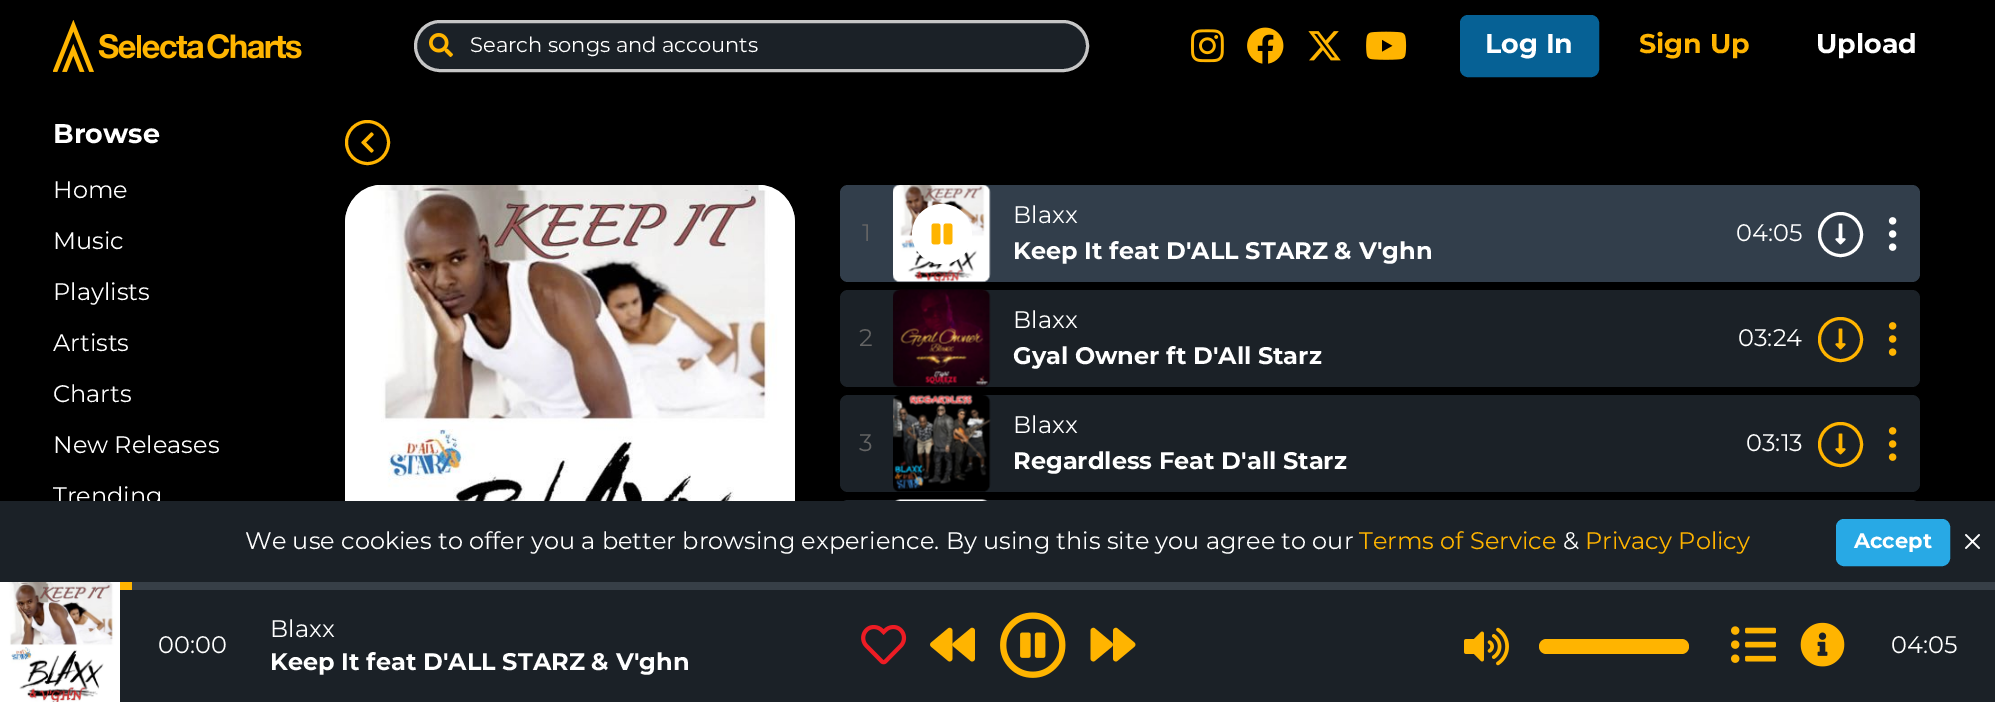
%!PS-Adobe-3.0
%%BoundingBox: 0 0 1995 702
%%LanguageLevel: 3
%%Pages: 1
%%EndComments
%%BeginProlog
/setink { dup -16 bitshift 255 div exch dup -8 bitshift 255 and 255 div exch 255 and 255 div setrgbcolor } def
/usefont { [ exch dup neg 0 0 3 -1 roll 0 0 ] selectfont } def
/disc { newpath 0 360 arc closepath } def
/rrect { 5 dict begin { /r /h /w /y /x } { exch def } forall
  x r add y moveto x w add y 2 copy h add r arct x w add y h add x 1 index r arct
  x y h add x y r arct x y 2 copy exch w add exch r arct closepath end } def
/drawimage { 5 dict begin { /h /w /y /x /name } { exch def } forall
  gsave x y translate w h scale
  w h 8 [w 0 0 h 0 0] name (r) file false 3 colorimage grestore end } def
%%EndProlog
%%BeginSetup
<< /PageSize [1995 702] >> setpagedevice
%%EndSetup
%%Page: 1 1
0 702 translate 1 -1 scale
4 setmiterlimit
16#000000 setink
0 0 1995 702 rectfill
(img1.raw) 53 20 249 52 drawimage
16#1B2127 setink
415.5 21.5 672 49 24.5 rrect gsave fill grestore
16#C6C6C6 setink
3 setlinewidth
stroke
(img2.raw) 429 33 24 24 drawimage
/Montserrat-Regular 21 usefont
16#FFFFFF setink
470 52 moveto (Search songs and accounts) show
(img3.raw) 1191 29 33 34 drawimage
(img4.raw) 1247 27 37 37 drawimage
(img5.raw) 1308 31 33 30 drawimage
(img6.raw) 1366 31 41 29 drawimage
16#066195 setink
1461.5 16.5 136 59 6.5 rrect gsave fill grestore
stroke
/Montserrat-Bold 27 usefont
16#FFFFFF setink
1485 53 moveto (Log In) show
16#FFB400 setink
1639 53 moveto (Sign Up) show
16#FFFFFF setink
1816 53 moveto (Upload) show
53 143 moveto (Browse) show
/Montserrat-Regular 24 usefont
[
    [(Home) 53 198]
    [(Music) 53 249]
    [(Playlists) 53 300]
    [(Artists) 53 351]
    [(Charts) 53 402]
    [(New Releases) 53 453]
    [(Trending) 53 504]
] { aload pop moveto show } forall
16#FFB400 setink
367.5 142.5 21 disc stroke
(img7.raw) 361 132 13 21 drawimage
(img8.raw) 345 185 450 316 drawimage
16#323E4B setink
840 185 1080 97 8 rrect fill
16#646464 setink
862 241 moveto (1) show
(img9.raw) 893 185 98 98 drawimage
16#FFFFFF setink
942 234 30 disc fill
(img10.raw) 931 223 22 22 drawimage
1013 223 moveto (Blaxx) show
/Montserrat-Bold 24 usefont
1013 259 moveto (Keep It feat D'ALL STARZ & V'ghn) show
/Montserrat-Regular 24 usefont
1736 241 moveto (04:05) show
1840.5 234.5 21 disc stroke
(img11.raw) 1835 223 11 22 drawimage
(img12.raw) 1888 217 9 34 drawimage
16#1B2127 setink
840 290 1080 97 8 rrect fill
16#646464 setink
859 346 moveto (2) show
(img13.raw) 893 289 98 98 drawimage
16#FFFFFF setink
1013 328 moveto (Blaxx) show
/Montserrat-Bold 24 usefont
1013 364 moveto (Gyal Owner ft D'All Starz) show
/Montserrat-Regular 24 usefont
1738 346 moveto (03:24) show
16#FFB400 setink
1840.5 339.5 21 disc stroke
(img14.raw) 1835 328 11 22 drawimage
(img15.raw) 1888 322 9 34 drawimage
16#1B2127 setink
840 395 1080 97 8 rrect fill
16#646464 setink
859 451 moveto (3) show
(img16.raw) 893 394 98 98 drawimage
16#FFFFFF setink
1013 433 moveto (Blaxx) show
/Montserrat-Bold 24 usefont
1013 469 moveto (Regardless Feat D'all Starz) show
/Montserrat-Regular 24 usefont
1746 451 moveto (03:13) show
16#FFB400 setink
1840.5 444.5 21 disc stroke
(img14.raw) 1835 433 11 22 drawimage
(img15.raw) 1888 427 9 34 drawimage
16#1B2127 setink
848 500 moveto 1912 500 lineto 1916.5 500 1920 503.5 1920 508 curveto 1920 582 lineto 840 582 lineto 840 508 lineto 840 503.5 843.5 500 848 500 curveto closepath fill
(img17.raw) 895 499 93 2 drawimage
0 501 1995 81 rectfill
16#FFFFFF setink
245 549 moveto (We use cookies to offer you a better browsing experience. By using this site you agree to our) show
16#FFB400 setink
1359 549 moveto (Terms of Service) show
16#FFFFFF setink
1563 549 moveto (&) show
16#FFB400 setink
1585 549 moveto (Privacy Policy) show
16#28A9E5 setink
1837.5 520.5 111 44 6.5 rrect gsave fill grestore
stroke
/Montserrat-Bold 21 usefont
16#FFFFFF setink
1854 548 moveto (Accept) show
(img18.raw) 1965 534 15 15 drawimage
[
    [120 590 1875 112 16#1B2127]
    [132 582 1863 8 16#373F47]
    [120 582 12 8 16#FFB400]
] { aload pop setink rectfill } forall
(img19.raw) 0 582 120 120 drawimage
/Montserrat-Regular 24 usefont
16#FFFFFF setink
158 653 moveto (00:00) show
270 637 moveto (Blaxx) show
/Montserrat-Bold 24 usefont
270 670 moveto (Keep It feat D'ALL STARZ & V'ghn) show
(img20.raw) 861 625 46 40 drawimage
(img21.raw) 930 627 45 35 drawimage
(img22.raw) 1000 612 66 66 drawimage
(img23.raw) 1090 627 46 35 drawimage
(img24.raw) 1464 627 45 39 drawimage
16#FFB400 setink
1539 639 150 15 7.5 rrect fill
(img25.raw) 1731 626 45 37 drawimage
(img26.raw) 1800 622 45 45 drawimage
/Montserrat-Regular 24 usefont
16#FFFFFF setink
1891 653 moveto (04:05) show
showpage
%%EOF
